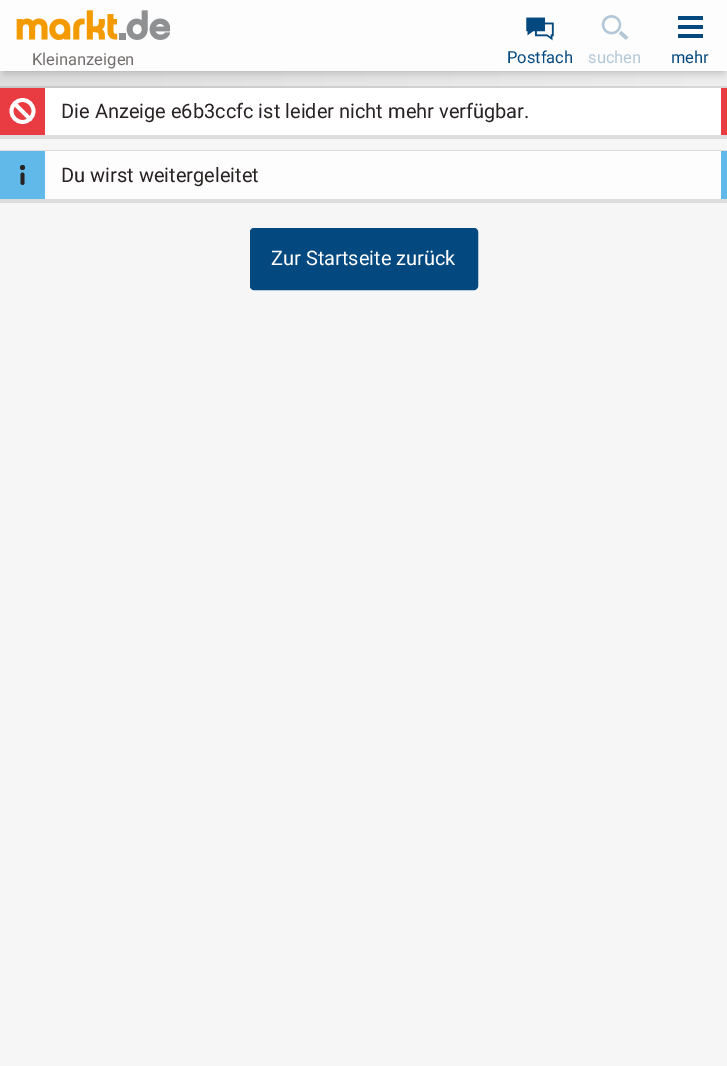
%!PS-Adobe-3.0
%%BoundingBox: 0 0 727 1066
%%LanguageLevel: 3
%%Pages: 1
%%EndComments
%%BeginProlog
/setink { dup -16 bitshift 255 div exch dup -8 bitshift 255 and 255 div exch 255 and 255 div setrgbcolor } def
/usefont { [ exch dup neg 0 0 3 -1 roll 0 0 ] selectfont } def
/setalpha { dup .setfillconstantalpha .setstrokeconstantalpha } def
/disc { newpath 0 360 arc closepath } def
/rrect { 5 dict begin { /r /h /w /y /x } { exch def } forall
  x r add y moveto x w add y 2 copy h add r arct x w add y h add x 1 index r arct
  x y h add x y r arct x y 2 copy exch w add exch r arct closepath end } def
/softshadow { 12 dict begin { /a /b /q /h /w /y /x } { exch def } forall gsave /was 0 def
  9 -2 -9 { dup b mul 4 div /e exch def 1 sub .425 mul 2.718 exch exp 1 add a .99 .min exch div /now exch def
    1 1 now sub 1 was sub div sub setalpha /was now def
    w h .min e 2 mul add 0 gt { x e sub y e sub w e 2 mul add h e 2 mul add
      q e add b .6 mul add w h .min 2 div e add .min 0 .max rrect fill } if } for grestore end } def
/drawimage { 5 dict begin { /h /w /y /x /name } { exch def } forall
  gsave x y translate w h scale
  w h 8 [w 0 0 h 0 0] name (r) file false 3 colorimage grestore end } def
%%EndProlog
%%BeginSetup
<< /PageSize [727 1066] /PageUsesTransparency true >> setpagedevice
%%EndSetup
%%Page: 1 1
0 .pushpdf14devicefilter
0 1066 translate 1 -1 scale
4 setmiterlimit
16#FFFFFF setink
0 0 727 1066 rectfill
gsave 0 71 moveto 727 71 lineto 727 88 lineto 0 88 lineto closepath clip newpath
<< /ShadingType 2 /ColorSpace /DeviceRGB /Coords [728 533 0 533] /Extend [true true] /Function << /FunctionType 2 /Domain [0 1] /C0 [0.937 0.937 0.937] /C1 [0.871 0.871 0.871] /N 1 >> >> shfill grestore
0.1 setalpha
16#000000 setink
0 86 moveto 0 88 lineto 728 88 lineto 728 134 lineto 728 86 lineto closepath fill
1 setalpha
4 9 720 64 0 4.5 0.2 softshadow
16#FEFDFD setink
0 2 727 69 rectfill
(img1.raw) 16 10 154 30 drawimage
/Roboto-Regular 16.5 usefont
16#736F6F setink
32 65 moveto (Kleinanzeigen) show
(img2.raw) 526 17 28 24 drawimage
16#03497F setink
507 63 moveto (Postfach) show
(img3.raw) 601 15 28 25 drawimage
16#B3C7D7 setink
588 63 moveto (suchen) show
16#03497F setink
678 16 25 4 1 rrect fill
678 25 25 4 1 rrect fill
678 34 25 4 1 rrect fill
671 63 moveto (mehr) show
16#F6F6F6 setink
0 139 727 927 rectfill
16#DDDDDD setink
0 135 moveto 0 139 lineto 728 139 lineto 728 91 lineto 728 135 lineto closepath fill
16#E83B42 setink
721 88 6 47 rectfill
0 88 45 47 rectfill
16#FEFDFD setink
3.8 setlinewidth
22.5 111 11 disc stroke
1 setlinecap
1 setlinejoin
15 104 moveto 30 119 lineto stroke
/Roboto-Regular 20 usefont
16#282222 setink
61 118 moveto (Die Anzeige e6b3ccfc ist leider nicht mehr verfügbar.) show
16#DDDDDD setink
0 199 moveto 0 203 lineto 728 203 lineto 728 155 lineto 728 199 lineto closepath fill
0 150 moveto 0 151 lineto 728 151 lineto 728 198 lineto 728 150 lineto closepath fill
[
    [45 151 676 48 16#FEFDFD]
    [721 151 6 48 16#60B9E9]
    [0 151 45 48 16#60B9E9]
] { aload pop setink rectfill } forall
16#282222 setink
22.5 174.5 moveto 22.5 183 lineto stroke
22.5 167.5 2.5 disc fill
61 182 moveto (Du wirst weitergeleitet) show
16#03497F setink
250.5 228.5 227 61 3.5 rrect gsave fill grestore
1 setlinewidth
0 setlinecap
0 setlinejoin
stroke
16#FEFDFD setink
271 265 moveto (Zur Startseite zurück) show
.poppdf14devicefilter showpage
%%EOF
